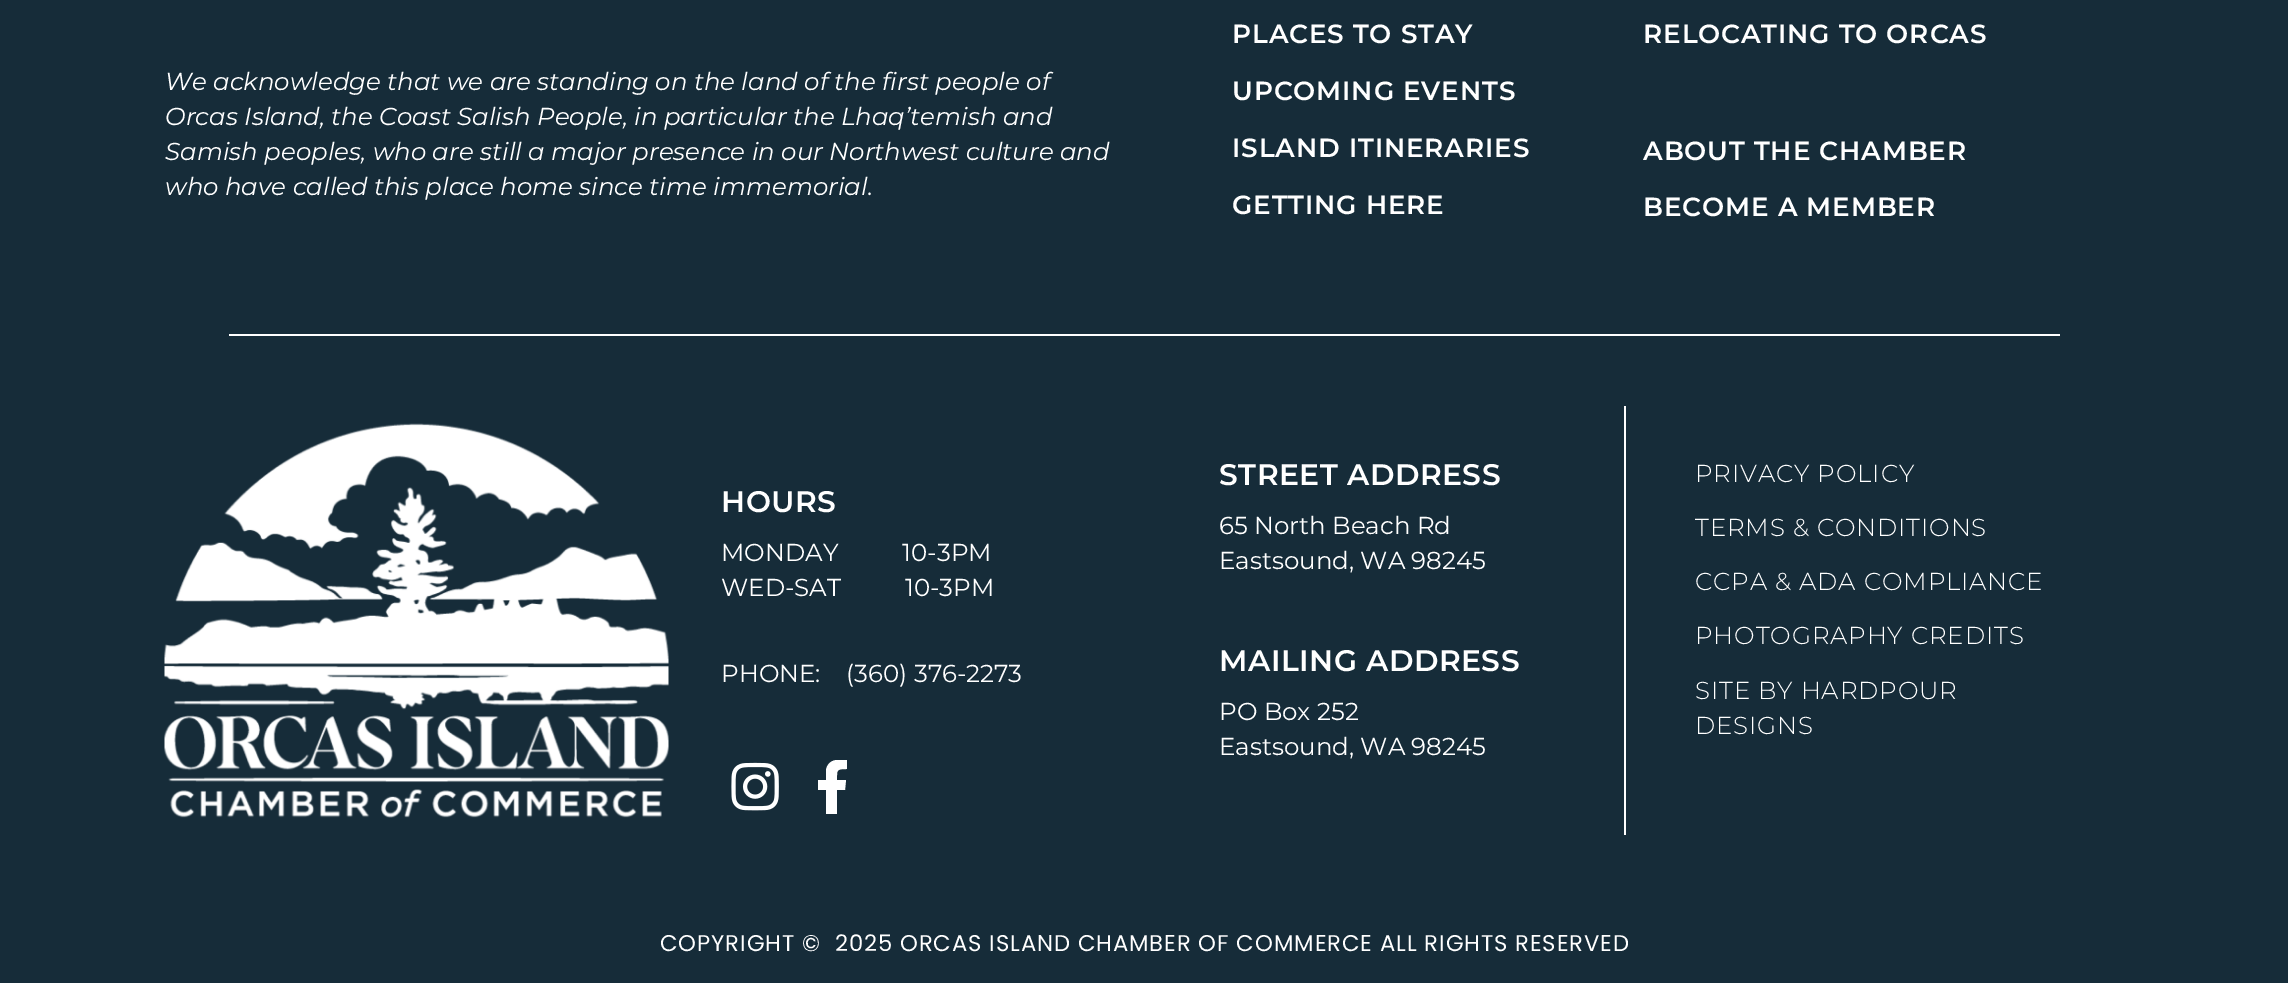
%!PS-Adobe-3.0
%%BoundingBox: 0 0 2288 983
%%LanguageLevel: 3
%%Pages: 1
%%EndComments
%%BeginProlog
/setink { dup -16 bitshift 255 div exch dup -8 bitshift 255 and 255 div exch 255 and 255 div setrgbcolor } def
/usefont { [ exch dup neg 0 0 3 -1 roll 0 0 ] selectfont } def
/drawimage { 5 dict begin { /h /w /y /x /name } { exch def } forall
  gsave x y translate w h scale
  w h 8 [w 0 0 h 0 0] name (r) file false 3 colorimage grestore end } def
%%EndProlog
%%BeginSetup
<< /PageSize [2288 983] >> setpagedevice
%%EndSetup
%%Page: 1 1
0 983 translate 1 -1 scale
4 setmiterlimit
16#162C39 setink
0 0 2288 983 rectfill
/Montserrat-Italic 24.5 usefont
16#FFFFFF setink
[
    [(We acknowledge that we are standing on the land of the first people of) 165 90]
    [(Orcas Island, the Coast Salish People, in particular the Lhaq’temish and) 165 125]
    [(Samish peoples, who are still a major presence in our Northwest culture and) 165 160]
    [(who have called this place home since time immemorial.) 165 195]
] { aload pop moveto show } forall
/Montserrat-SemiBold 26.25 usefont
1232 43 moveto 0.88 0 (PLACES TO STAY) ashow
1232 100 moveto 0.88 0 (UPCOMING EVENTS) ashow
1232 157 moveto 0.88 0 (ISLAND ITINERARIES) ashow
1232 214 moveto 0.88 0 (GETTING HERE) ashow
1643 43 moveto 0.88 0 (RELOCATING TO ORCAS) ashow
1643 160 moveto 0.88 0 (ABOUT THE CHAMBER) ashow
1643 216 moveto 0.88 0 (BECOME A MEMBER) ashow
229 334 1831 2 rectfill
(img1.raw) 164 423 505 395 drawimage
/Montserrat-SemiBold 29.75 usefont
721 512 moveto 0.5 0 (HOURS) ashow
/Montserrat-Regular 24.5 usefont
[
    [(MONDAY          10-3PM) 721 561]
    [(WED-SAT          10-3PM) 721 596]
    [(PHONE:    \(360\) 376-2273) 721 682]
] { aload pop moveto show } forall
(img2.raw) 731 762 48 49 drawimage
gsave
805 760 54 54 rectclip
845 790 moveto 846 780 lineto 837 780 lineto 837 770 836 769 847 769 curveto 847 760 lineto 838 759 828 759 826 770 curveto 826 780 lineto 818 780 lineto 818 790 lineto 826 790 lineto 826 814 lineto 837 814 lineto 837 790 lineto closepath fill
grestore
/Montserrat-SemiBold 29.75 usefont
1219 485 moveto 0.5 0 (STREET ADDRESS) ashow
/Montserrat-Regular 24.5 usefont
1219 534 moveto (65 North Beach Rd) show
1219 569 moveto (Eastsound, WA 98245) show
/Montserrat-SemiBold 29.75 usefont
1219 671 moveto 0.5 0 (MAILING ADDRESS) ashow
/Montserrat-Regular 24.5 usefont
1219 720 moveto (PO Box 252) show
1219 755 moveto (Eastsound, WA 98245) show
1624 406 2 429 rectfill
/Montserrat-Light 24.5 usefont
1695 482 moveto 0.88 0 (PRIVACY POLICY) ashow
1695 536 moveto 0.88 0 (TERMS & CONDITIONS) ashow
1695 590 moveto 0.88 0 (CCPA & ADA COMPLIANCE) ashow
1695 644 moveto 0.88 0 (PHOTOGRAPHY CREDITS) ashow
1695 699 moveto 0.88 0 (SITE BY HARDPOUR) ashow
1695 734 moveto 0.88 0 (DESIGNS) ashow
/Poppins-Regular 22.75 usefont
660 951 moveto 0.88 0 (COPYRIGHT ©  2025 ORCAS ISLAND CHAMBER OF COMMERCE ALL RIGHTS RESERVED) ashow
showpage
%%EOF
